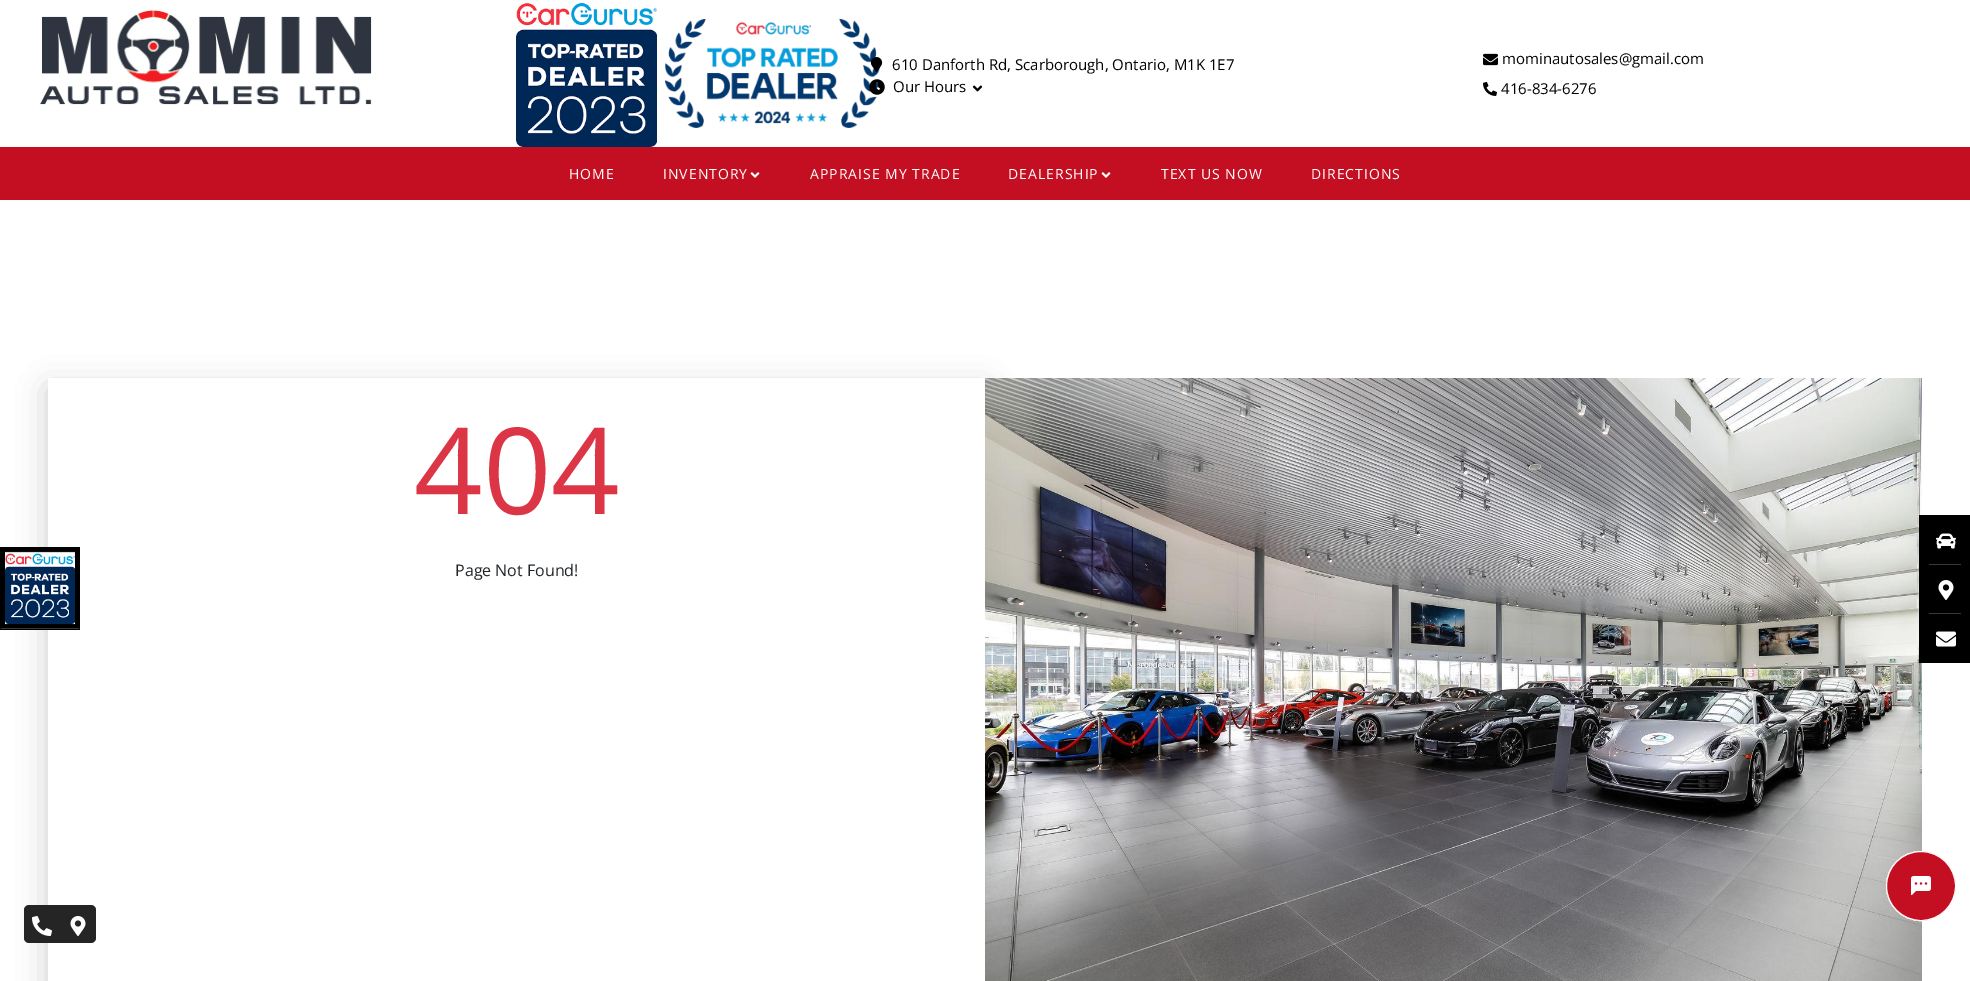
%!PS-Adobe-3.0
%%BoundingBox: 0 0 1970 981
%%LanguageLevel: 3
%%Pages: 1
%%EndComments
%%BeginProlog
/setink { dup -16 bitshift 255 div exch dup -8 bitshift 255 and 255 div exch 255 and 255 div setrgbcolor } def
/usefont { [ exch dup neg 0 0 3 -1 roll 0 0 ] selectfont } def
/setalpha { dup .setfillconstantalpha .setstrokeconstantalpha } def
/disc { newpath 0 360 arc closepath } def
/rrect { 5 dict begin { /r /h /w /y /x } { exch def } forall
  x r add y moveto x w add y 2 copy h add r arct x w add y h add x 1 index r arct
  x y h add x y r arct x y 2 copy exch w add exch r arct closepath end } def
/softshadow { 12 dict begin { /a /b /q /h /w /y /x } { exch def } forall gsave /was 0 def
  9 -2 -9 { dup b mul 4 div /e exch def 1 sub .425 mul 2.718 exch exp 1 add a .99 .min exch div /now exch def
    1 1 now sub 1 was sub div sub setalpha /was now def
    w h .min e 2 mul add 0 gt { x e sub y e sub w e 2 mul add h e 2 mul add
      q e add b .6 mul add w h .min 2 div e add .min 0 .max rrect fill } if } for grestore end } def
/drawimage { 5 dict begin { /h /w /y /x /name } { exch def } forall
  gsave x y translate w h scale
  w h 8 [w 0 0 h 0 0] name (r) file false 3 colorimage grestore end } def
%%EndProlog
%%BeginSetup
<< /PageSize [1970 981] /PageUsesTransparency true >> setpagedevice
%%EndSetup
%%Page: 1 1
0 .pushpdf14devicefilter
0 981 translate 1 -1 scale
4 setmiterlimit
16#FFFFFF setink
0 0 1970 981 rectfill
(img1.raw) 40 9 332 96 drawimage
(img2.raw) 516 2 141 145 drawimage
(img3.raw) 665 19 215 109 drawimage
(img4.raw) 870 57 13 15 drawimage
/OpenSans-Regular 15 usefont
16#000000 setink
892 70 moveto (610 Danforth Rd, Scarborough, Ontario, M1K 1E7) show
(img5.raw) 869 79 16 16 drawimage
893 92 moveto (Our Hours) show
(img6.raw) 972 85 11 7 drawimage
(img7.raw) 1483 53 15 13 drawimage
1502 64 moveto (mominautosales@gmail.com) show
(img8.raw) 1483 82 14 14 drawimage
1501 94 moveto (416-834-6276) show
16#C40F22 setink
0 147 1970 53 rectfill
/OpenSans-Regular 14 usefont
16#FFFFFF setink
569 179 moveto 1 0 (HOME) ashow
663 179 moveto 1 0 (INVENTORY) ashow
(img9.raw) 750 172 10 6 drawimage
810 179 moveto 1 0 (APPRAISE MY TRADE) ashow
1008 179 moveto 1 0 (DEALERSHIP) ashow
(img9.raw) 1101 172 10 6 drawimage
1161 179 moveto 1 0 (TEXT US NOW) ashow
1311 179 moveto 1 0 (DIRECTIONS) ashow
gsave
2 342 moveto 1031 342 lineto 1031 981 lineto 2 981 lineto closepath 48 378 moveto 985 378 lineto 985 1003 lineto 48 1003 lineto closepath eoclip newpath
16#000000 setink
48 388 937 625 0 15 0.2 softshadow
grestore
16#000000 setink
0 547 80 83 rectfill
16#343A40 setink
1 628 78 1 rectfill
(img10.raw) 5 551 70 74 drawimage
/OpenSans-Regular 120 usefont
16#DC3545 setink
414 514 moveto (404) show
/OpenSans-Regular 16 usefont
16#212529 setink
455 576 moveto (Page Not Found!) show
(img11.raw) 985 378 937 603 drawimage
16#000000 setink
1919 515 51 148 rectfill
16#343A40 setink
1929 564 32 1 rectfill
(img12.raw) 1936 533 20 16 drawimage
1929 613 32 1 rectfill
(img13.raw) 1938 580 16 20 drawimage
(img14.raw) 1936 631 20 16 drawimage
16#262525 setink
24 905 72 38 5 rrect fill
(img15.raw) 32 916 20 20 drawimage
(img16.raw) 70 916 16 20 drawimage
16#FFFFFF setink
1921 886 34.5 disc stroke
16#C40F22 setink
1921 886 34.5 disc gsave fill grestore
16#FFFFFF setink
stroke
(img17.raw) 1911 876 20 20 drawimage
.poppdf14devicefilter showpage
%%EOF
